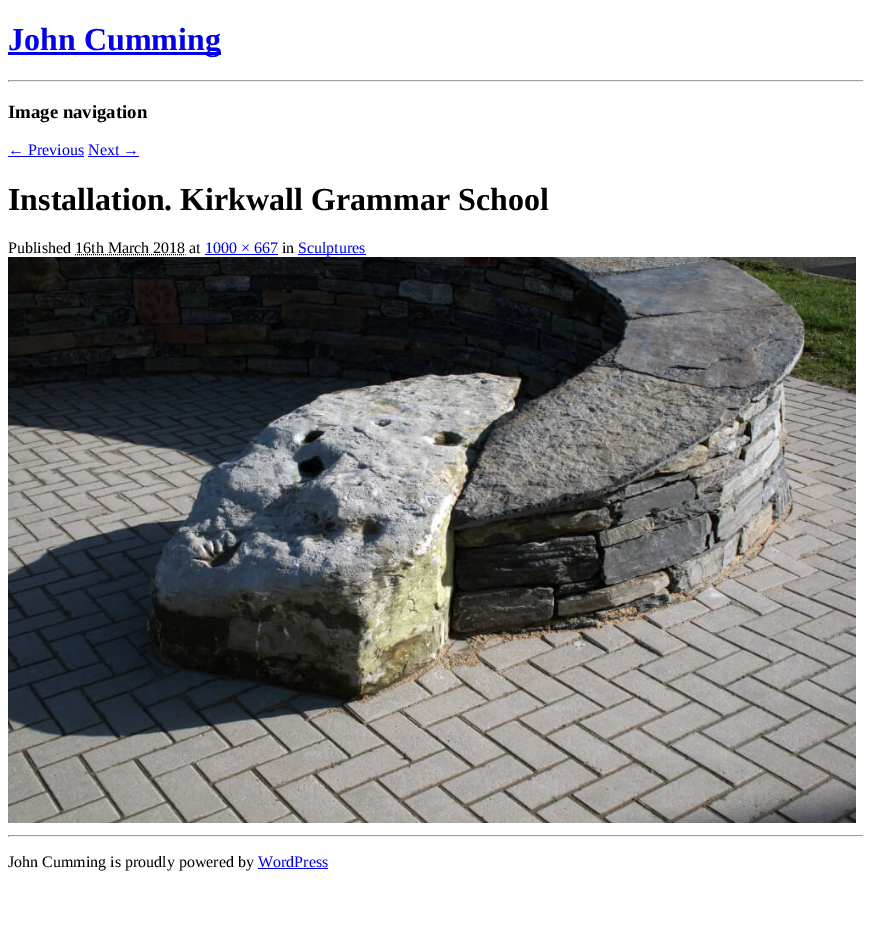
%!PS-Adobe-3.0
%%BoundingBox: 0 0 872 939
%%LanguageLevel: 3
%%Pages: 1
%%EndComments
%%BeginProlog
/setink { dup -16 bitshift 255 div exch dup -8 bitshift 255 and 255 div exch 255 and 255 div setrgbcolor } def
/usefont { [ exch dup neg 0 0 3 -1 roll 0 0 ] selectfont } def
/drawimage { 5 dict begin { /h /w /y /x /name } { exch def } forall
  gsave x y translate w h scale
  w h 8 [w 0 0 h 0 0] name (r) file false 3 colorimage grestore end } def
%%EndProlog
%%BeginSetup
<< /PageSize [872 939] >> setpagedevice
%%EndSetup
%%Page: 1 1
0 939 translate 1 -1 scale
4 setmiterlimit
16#FFFFFF setink
0 0 872 939 rectfill
16#0000EE setink
8 52 213 3 rectfill
/LiberationSerif-Bold 32 usefont
8 50 moveto (John Cumming) show
[
    [8 80 856 1 16#9F9F9F]
    [863 80 1 2 16#EEEEEE]
    [8 81 856 1 16#EEEEEE]
    [8 80 1 2 16#9F9F9F]
] { aload pop setink rectfill } forall
/LiberationSerif-Bold 18.75 usefont
16#000000 setink
8 118 moveto (Image navigation) show
/LiberationSerif-Regular 16 usefont
16#0000EE setink
8 155 moveto (← Previous Next →) show
8 156 76 1 rectfill
88 156 51 1 rectfill
/LiberationSerif-Bold 32 usefont
16#000000 setink
8 210 moveto (Installation. Kirkwall Grammar School) show
/LiberationSerif-Regular 16 usefont
8 253 moveto (Published 16th March 2018 at) show
16#0000EE setink
205 253 moveto (1000 × 667) show
205 254 73 1 rectfill
16#000000 setink
282 253 moveto (in) show
16#0000EE setink
298 254 68 1 rectfill
298 253 moveto (Sculptures) show
16#000000 setink
[1 1] 0 setdash
75 254.5 moveto 185.5 254.5 lineto stroke
(img1.raw) 8 257 848 566 drawimage
[
    [8 835 856 1 16#9F9F9F]
    [863 835 1 2 16#EEEEEE]
    [8 836 856 1 16#EEEEEE]
    [8 835 1 2 16#9F9F9F]
] { aload pop setink rectfill } forall
16#000000 setink
8 867 moveto (John Cumming is proudly powered by) show
16#0000EE setink
258 867 moveto (WordPress) show
258 868 70 1 rectfill
showpage
%%EOF
